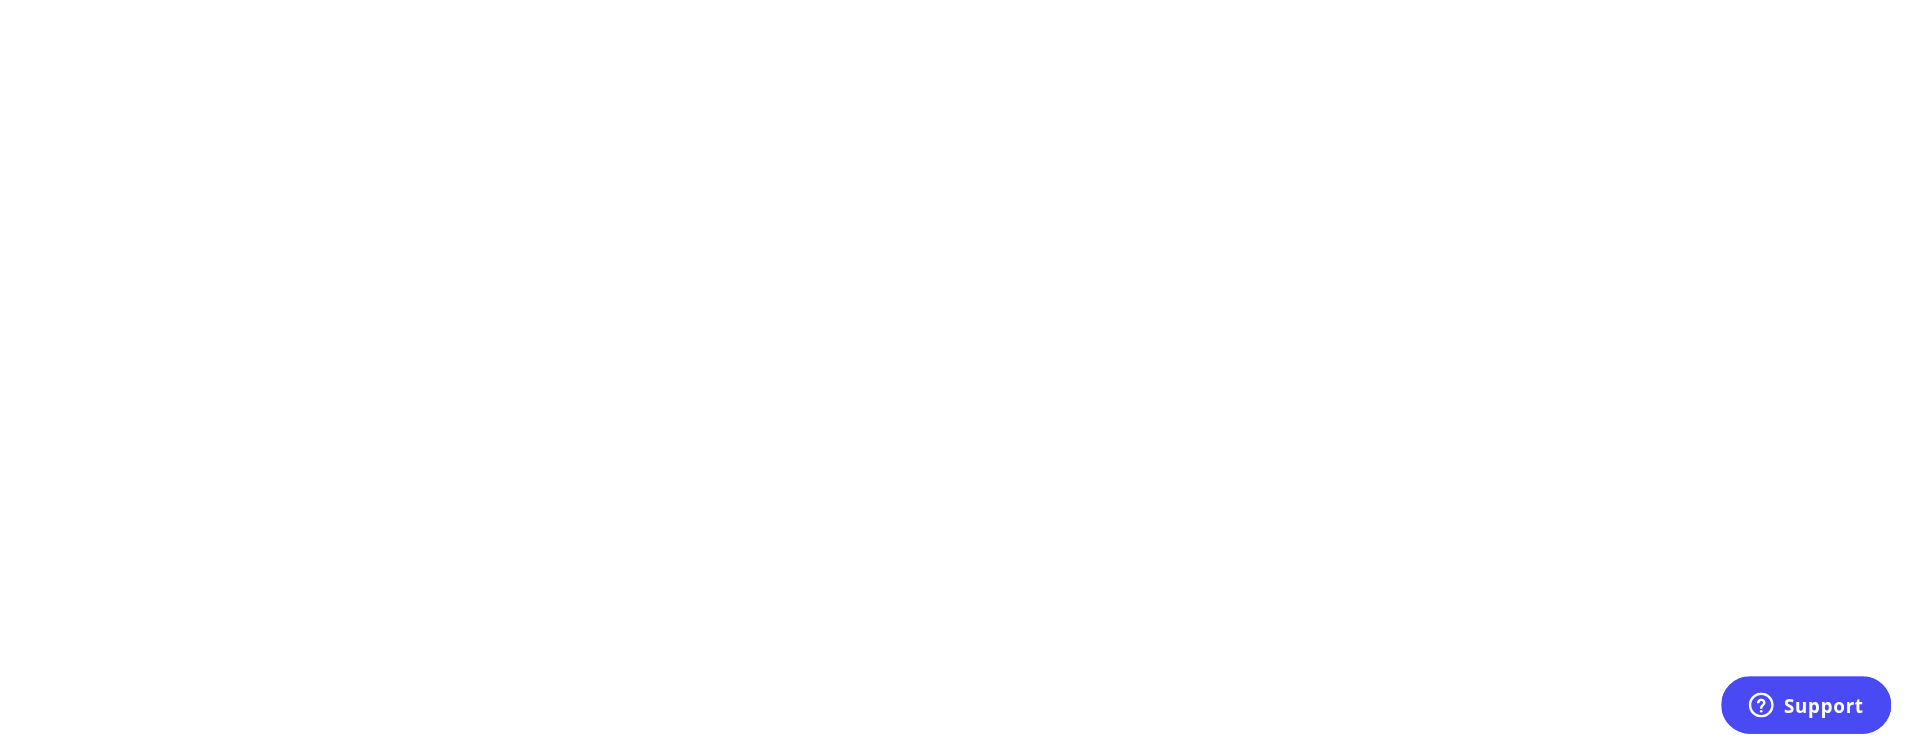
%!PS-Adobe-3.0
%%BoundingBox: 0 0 1916 751
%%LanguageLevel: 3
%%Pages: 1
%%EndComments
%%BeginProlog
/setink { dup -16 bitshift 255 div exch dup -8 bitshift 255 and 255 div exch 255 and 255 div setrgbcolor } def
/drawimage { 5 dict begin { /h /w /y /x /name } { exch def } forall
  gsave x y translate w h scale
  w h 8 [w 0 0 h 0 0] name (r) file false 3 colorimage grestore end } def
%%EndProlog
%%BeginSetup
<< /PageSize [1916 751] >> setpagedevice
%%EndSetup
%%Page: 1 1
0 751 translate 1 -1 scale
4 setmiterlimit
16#FFFFFF setink
0 0 1916 751 rectfill
(img1.raw) 1721 676 170 58 drawimage
(img2.raw) 1721 676 170 58 drawimage
showpage
%%EOF
